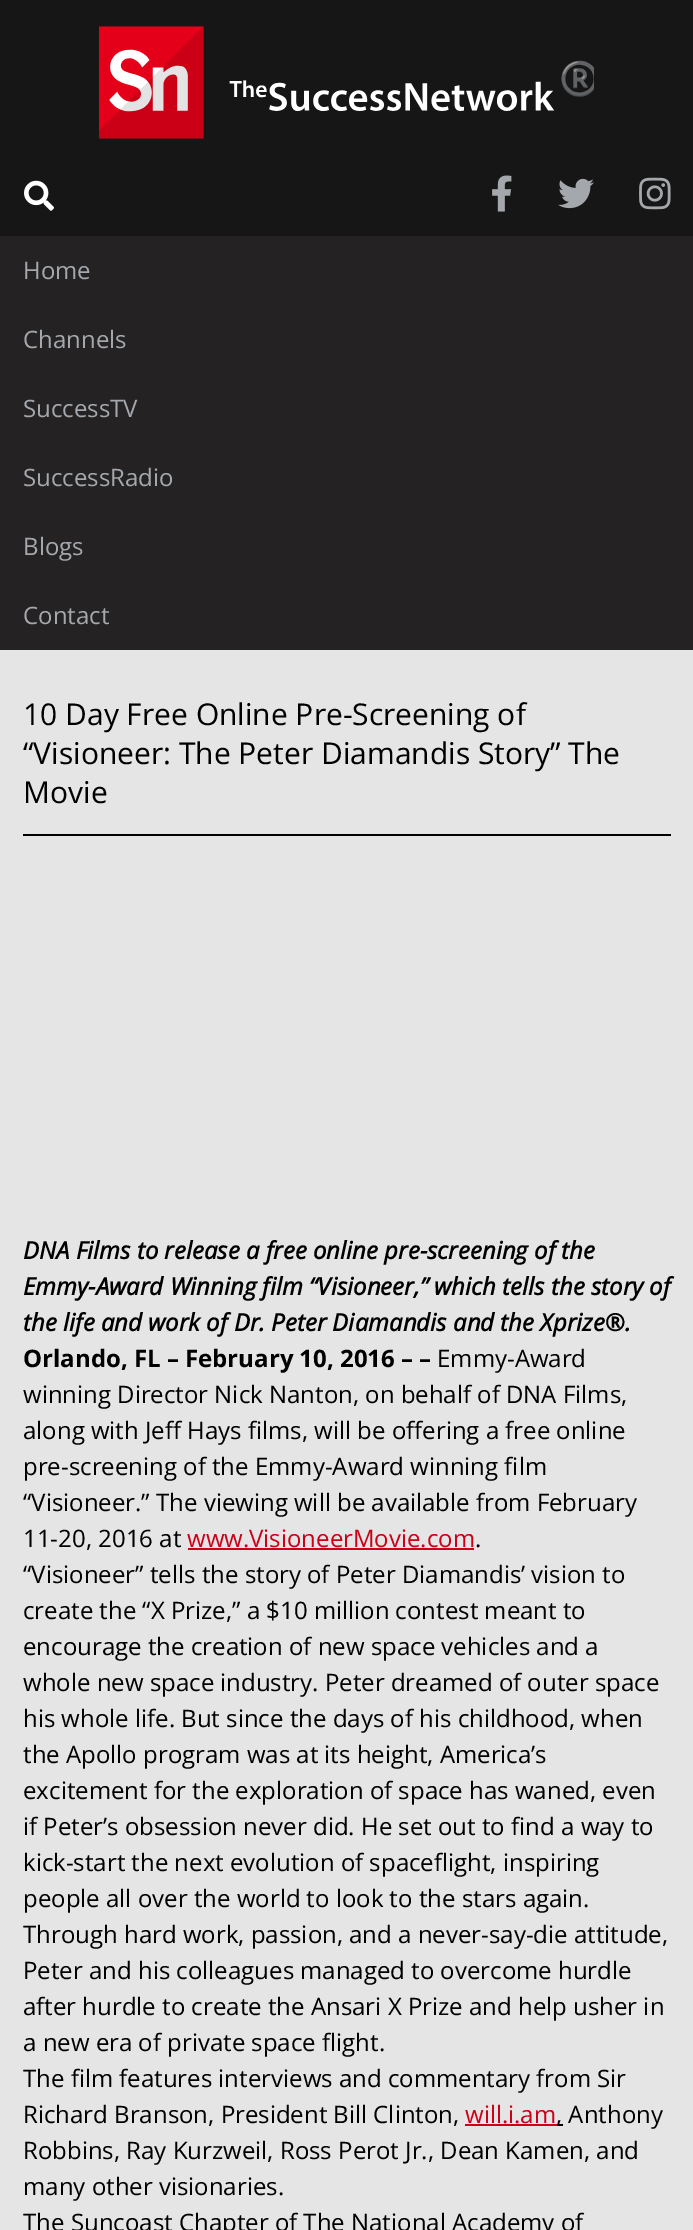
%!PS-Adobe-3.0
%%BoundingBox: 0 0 693 2230
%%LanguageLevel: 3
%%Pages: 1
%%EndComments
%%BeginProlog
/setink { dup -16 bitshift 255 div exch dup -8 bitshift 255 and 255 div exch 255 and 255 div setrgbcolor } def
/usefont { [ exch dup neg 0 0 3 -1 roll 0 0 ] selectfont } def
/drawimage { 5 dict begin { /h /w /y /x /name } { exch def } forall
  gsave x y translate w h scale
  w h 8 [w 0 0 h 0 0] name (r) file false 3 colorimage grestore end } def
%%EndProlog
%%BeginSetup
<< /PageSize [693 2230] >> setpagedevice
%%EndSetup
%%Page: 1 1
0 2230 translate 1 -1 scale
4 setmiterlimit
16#E5E5E5 setink
0 0 693 2230 rectfill
16#171616 setink
0 0 693 236 rectfill
(img1.raw) 99 26 495 113 drawimage
(img2.raw) 24 180 30 31 drawimage
(img3.raw) 492 175 20 37 drawimage
(img4.raw) 558 178 36 31 drawimage
(img5.raw) 639 177 32 33 drawimage
16#242222 setink
0 236 693 414 rectfill
/OpenSans-Regular 24 usefont
16#A4A8AD setink
[
    [(Home) 23 279]
    [(Channels) 23 348]
    [(SuccessTV) 23 417]
    [(SuccessRadio) 23 486]
    [(Blogs) 23 555]
    [(Contact) 23 624]
] { aload pop moveto show } forall
16#000000 setink
23 834 648 2 rectfill
/OpenSans-Regular 30 usefont
[
    [(10 Day Free Online Pre-Screening of) 23 725]
    [(“Visioneer: The Peter Diamandis Story” The) 23 764]
    [(Movie) 23 803]
] { aload pop moveto show } forall
/OpenSans-BoldItalic 24 usefont
[
    [(DNA Films to release a free online pre-screening of the) 23 1259]
    [(Emmy-Award Winning film “Visioneer,” which tells the story of) 23 1295]
    [(the life and work of Dr. Peter Diamandis and the Xprize®.) 23 1331]
] { aload pop moveto show } forall
/OpenSans-Bold 24 usefont
23 1367 moveto (Orlando, FL – February 10, 2016 – –) show
/OpenSans-Regular 24 usefont
[
    [(Emmy-Award) 437 1367]
    [(winning Director Nick Nanton, on behalf of DNA Films,) 23 1403]
    [(along with Jeff Hays films, will be offering a free online) 23 1439]
    [(pre-screening of the Emmy-Award winning film) 23 1475]
    [(“Visioneer.” The viewing will be available from February) 23 1511]
    [(11-20, 2016 at) 23 1547]
] { aload pop moveto show } forall
16#CC0016 setink
187 1547 moveto (www.VisioneerMovie.com) show
188 1548 286 2 rectfill
16#000000 setink
[
    [(.) 475 1547]
    [(“Visioneer” tells the story of Peter Diamandis’ vision to) 23 1583]
    [(create the “X Prize,” a $10 million contest meant to) 23 1619]
    [(encourage the creation of new space vehicles and a) 23 1655]
    [(whole new space industry. Peter dreamed of outer space) 23 1691]
    [(his whole life. But since the days of his childhood, when) 23 1727]
    [(the Apollo program was at its height, America’s) 23 1763]
    [(excitement for the exploration of space has waned, even) 23 1799]
    [(if Peter’s obsession never did. He set out to find a way to) 23 1835]
    [(kick-start the next evolution of spaceflight, inspiring) 23 1871]
    [(people all over the world to look to the stars again.) 23 1907]
    [(Through hard work, passion, and a never-say-die attitude,) 23 1943]
    [(Peter and his colleagues managed to overcome hurdle) 23 1979]
    [(after hurdle to create the Ansari X Prize and help usher in) 23 2015]
    [(a new era of private space flight.) 23 2051]
    [(The film features interviews and commentary from Sir) 23 2087]
    [(Richard Branson, President Bill Clinton,) 23 2123]
] { aload pop moveto show } forall
16#CC0016 setink
465 2123 moveto (will.i.am) show
465 2124 92 2 rectfill
16#000000 setink
557 2124 6 2 rectfill
[
    [(, Anthony) 556 2123]
    [(Robbins, Ray Kurzweil, Ross Perot Jr., Dean Kamen, and) 23 2159]
    [(many other visionaries.) 23 2195]
    [(The Suncoast Chapter of The National Academy of) 23 2231]
] { aload pop moveto show } forall
showpage
%%EOF
